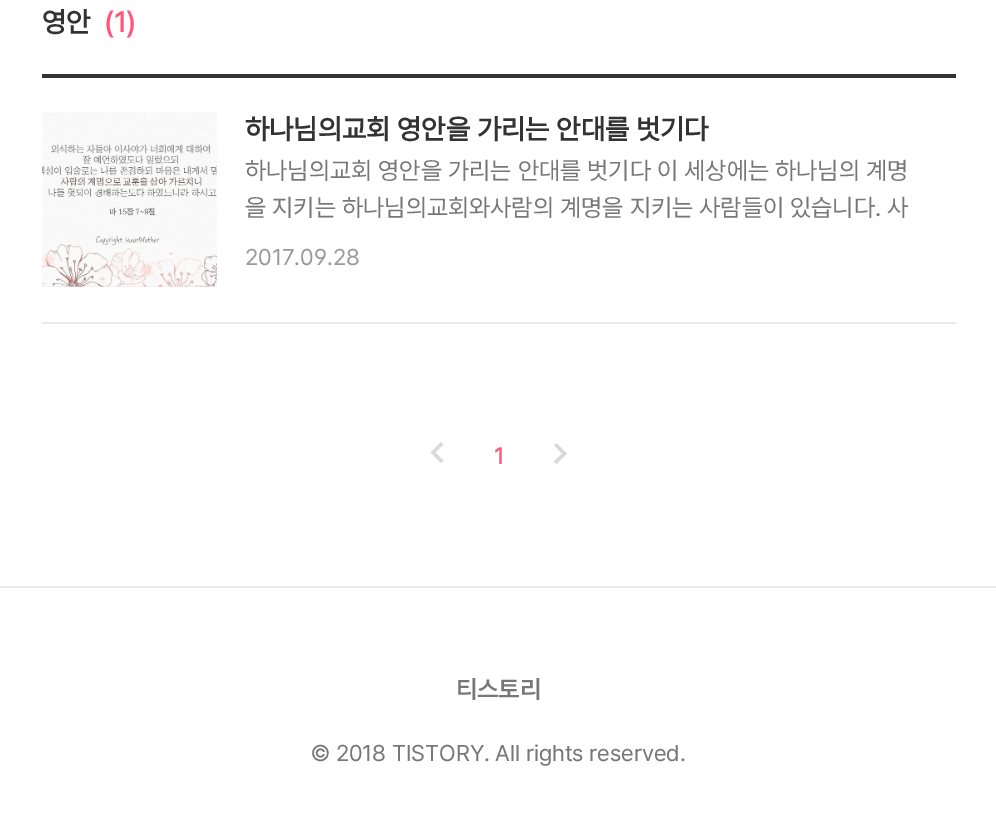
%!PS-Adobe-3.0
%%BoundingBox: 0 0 996 829
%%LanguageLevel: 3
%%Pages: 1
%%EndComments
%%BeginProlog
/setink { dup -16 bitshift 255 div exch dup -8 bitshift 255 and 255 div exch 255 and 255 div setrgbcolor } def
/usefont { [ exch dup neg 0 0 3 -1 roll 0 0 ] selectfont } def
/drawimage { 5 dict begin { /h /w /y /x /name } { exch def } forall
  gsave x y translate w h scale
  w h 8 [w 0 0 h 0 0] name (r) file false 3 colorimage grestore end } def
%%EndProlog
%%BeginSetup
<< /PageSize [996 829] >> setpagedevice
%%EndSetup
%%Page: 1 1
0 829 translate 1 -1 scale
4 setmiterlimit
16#FFFFFF setink
0 0 996 829 rectfill
/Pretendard-Bold 28 usefont
16#333333 setink
42 32 moveto (영안) show
16#FF567A setink
104 32 moveto (\(1\)) show
[
    [42 74 914 4 16#333333]
    [42 322 914 2 16#EBEBEB]
    [42 286 175 1 16#E9E9E9]
] { aload pop setink rectfill } forall
(img1.raw) 42 111 175 176 drawimage
16#333333 setink
245 139 moveto (하나님의교회 영안을 가리는 안대를 벗기다) show
/Pretendard-Regular 24.5 usefont
16#777777 setink
245 179 moveto (하나님의교회 영안을 가리는 안대를 벗기다 이 세상에는 하나님의 계명) show
245 216 moveto (을 지키는 하나님의교회와사람의 계명을 지키는 사람들이 있습니다. 사) show
/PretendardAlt-Regular 22.75 usefont
16#999999 setink
245 265 moveto (2017.09.28) show
16#D9D9D9 setink
443.5 444.5 moveto 441 442 lineto 430.5 452.5 lineto 441 463 lineto 443.5 460.5 lineto 435.5 452.5 lineto closepath fill
/Pretendard-Bold 22.75 usefont
16#FF567A setink
494 464 moveto (1) show
16#D9D9D9 setink
554 461.5 moveto 562 453.5 lineto 554 445.5 lineto 556.5 443 lineto 567 453.5 lineto 556.5 464 lineto closepath fill
16#EBEBEB setink
0 586 996 2 rectfill
/Pretendard-Bold 24.5 usefont
16#777777 setink
456 698 moveto (티스토리) show
/Pretendard-Regular 22.75 usefont
311 761 moveto (© 2018 TISTORY. All rights reserved.) show
showpage
%%EOF
